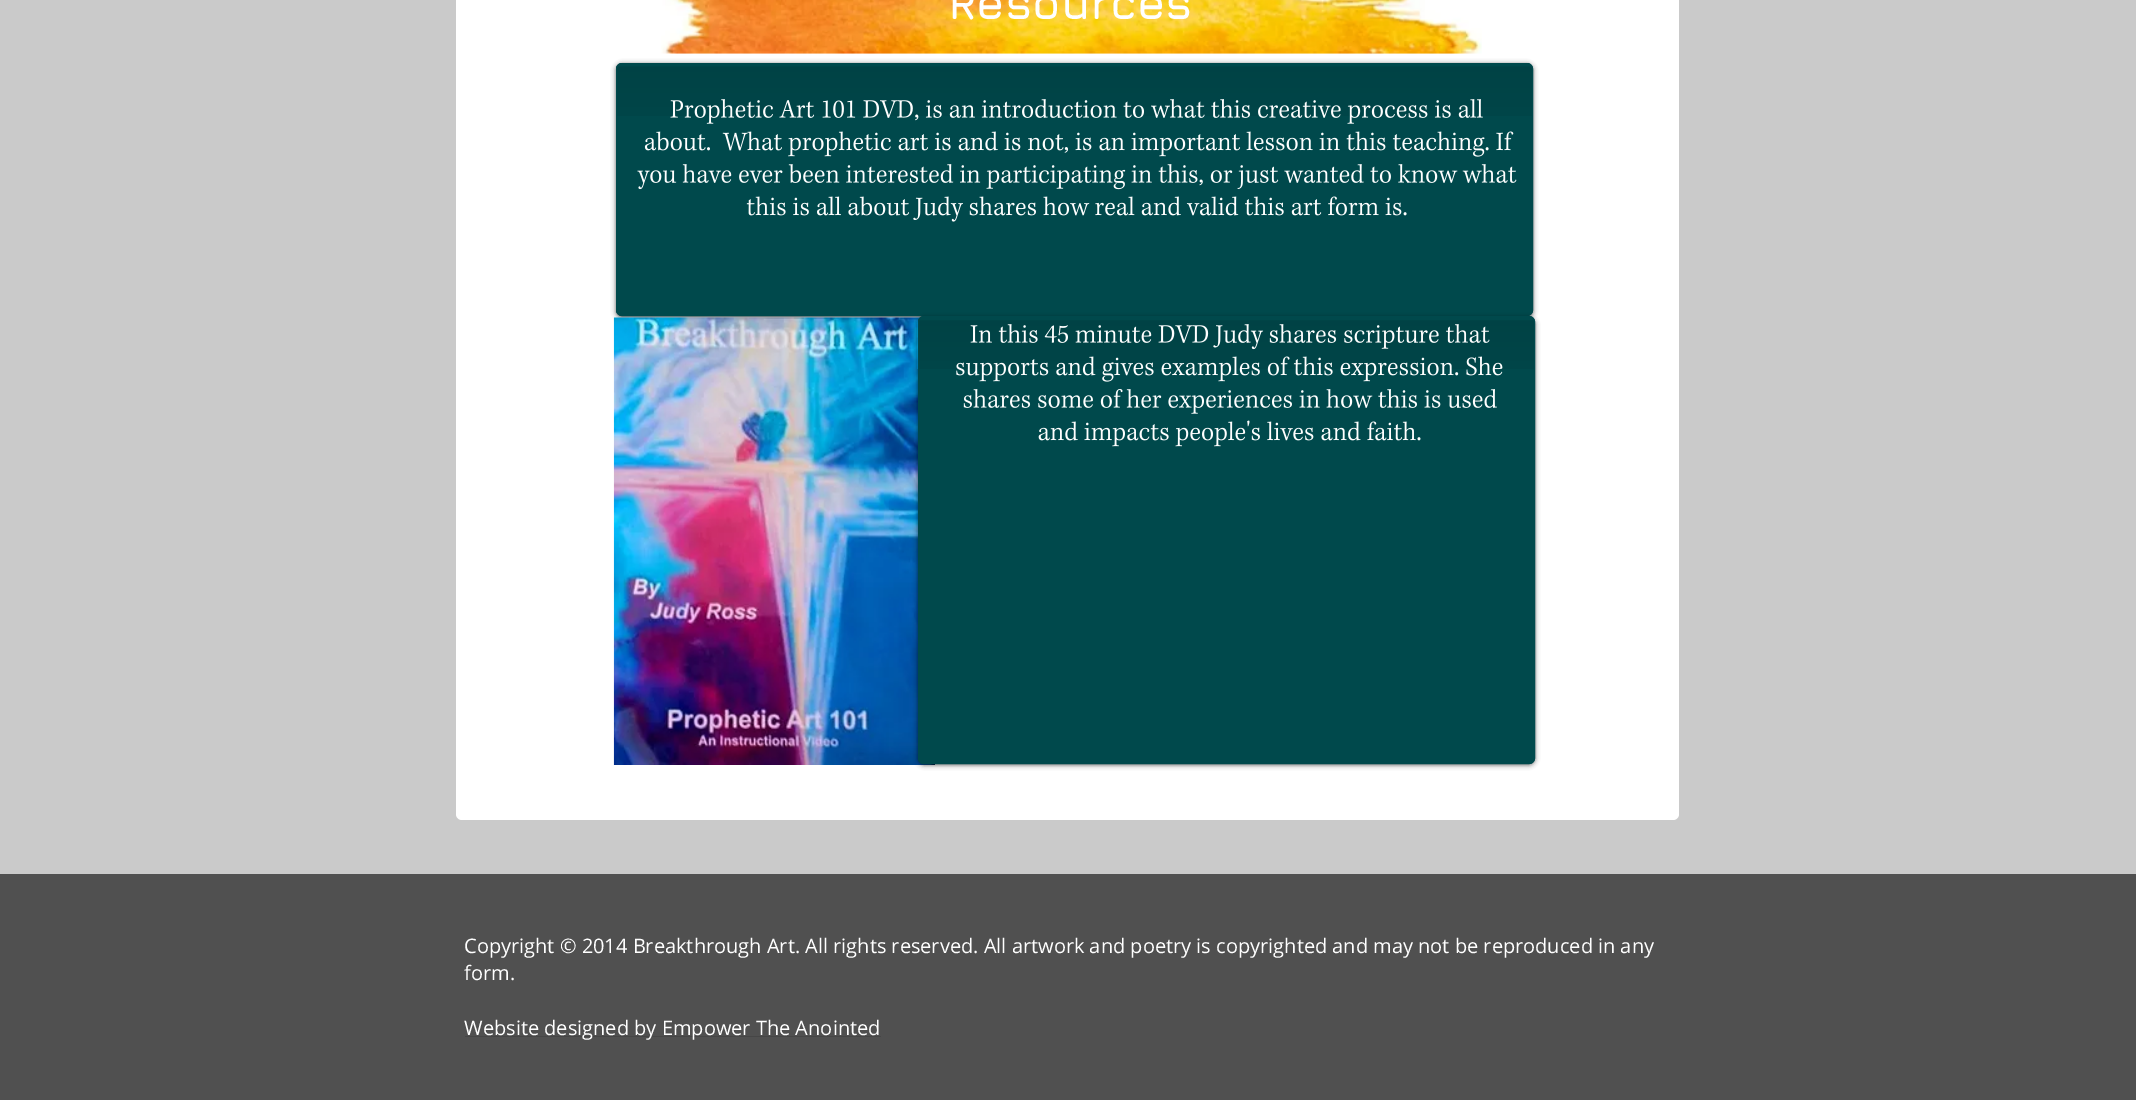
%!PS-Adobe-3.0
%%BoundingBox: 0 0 2136 1100
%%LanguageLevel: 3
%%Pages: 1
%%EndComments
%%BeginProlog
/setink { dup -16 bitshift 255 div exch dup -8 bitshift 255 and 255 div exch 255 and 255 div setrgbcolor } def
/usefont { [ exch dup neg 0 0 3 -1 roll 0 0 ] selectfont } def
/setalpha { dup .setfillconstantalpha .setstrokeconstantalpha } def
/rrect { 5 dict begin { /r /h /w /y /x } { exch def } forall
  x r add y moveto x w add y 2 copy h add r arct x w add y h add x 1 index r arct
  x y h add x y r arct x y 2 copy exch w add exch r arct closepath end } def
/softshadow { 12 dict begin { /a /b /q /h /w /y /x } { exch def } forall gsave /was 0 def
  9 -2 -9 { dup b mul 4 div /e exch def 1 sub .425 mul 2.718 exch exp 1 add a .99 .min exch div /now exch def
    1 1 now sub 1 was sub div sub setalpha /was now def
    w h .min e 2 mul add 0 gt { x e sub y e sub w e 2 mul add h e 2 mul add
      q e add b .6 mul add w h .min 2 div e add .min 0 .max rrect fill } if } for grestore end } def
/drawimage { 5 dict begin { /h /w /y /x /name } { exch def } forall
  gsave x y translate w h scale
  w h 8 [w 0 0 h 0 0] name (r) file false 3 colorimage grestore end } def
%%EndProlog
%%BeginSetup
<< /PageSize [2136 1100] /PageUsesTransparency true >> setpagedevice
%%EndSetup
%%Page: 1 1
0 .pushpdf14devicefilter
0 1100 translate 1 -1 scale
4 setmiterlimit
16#CACACA setink
0 0 2136 1100 rectfill
16#FFFFFF setink
456 -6 1223 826 6 rrect fill
(img1.raw) 661 0 821 54 drawimage
/Jura-Bold 45 usefont
948 19 moveto (Resources) show
16#000000 setink
616 64 917 254 6 2.5 0.6 softshadow
16#00494C setink
616 63 917 253 6 rrect fill
(img2.raw) 617 66 915 50 drawimage
616.5 63.5 916 252 5.5 rrect stroke
(img3.raw) 670 99 813 25 drawimage
(img4.raw) 644 131 870 26 drawimage
(img5.raw) 637 164 880 26 drawimage
(img6.raw) 746 196 661 26 drawimage
(img7.raw) 613 317 322 448 drawimage
16#000000 setink
918 318 617 447 6 2.5 0.6 softshadow
16#00494C setink
918 316 617 448 6 rrect fill
(img8.raw) 917 320 618 49 drawimage
918.5 316.5 616 447 5.5 rrect stroke
(img9.raw) 970 324 520 26 drawimage
(img10.raw) 956 356 547 26 drawimage
(img11.raw) 963 389 534 25 drawimage
(img12.raw) 1038 420 383 27 drawimage
16#505050 setink
0 874 2136 226 rectfill
/OpenSans-Regular 20 usefont
16#FFFFFF setink
464 953 moveto (Copyright © 2014 Breakthrough Art. All rights reserved. All artwork and poetry is copyrighted and may not be reproduced in any) show
464 980 moveto (form.) show
16#464646 setink
465 1036 416 1 rectfill
16#FFFFFF setink
464 1035 moveto (Website designed by Empower The Anointed) show
.poppdf14devicefilter showpage
%%EOF
